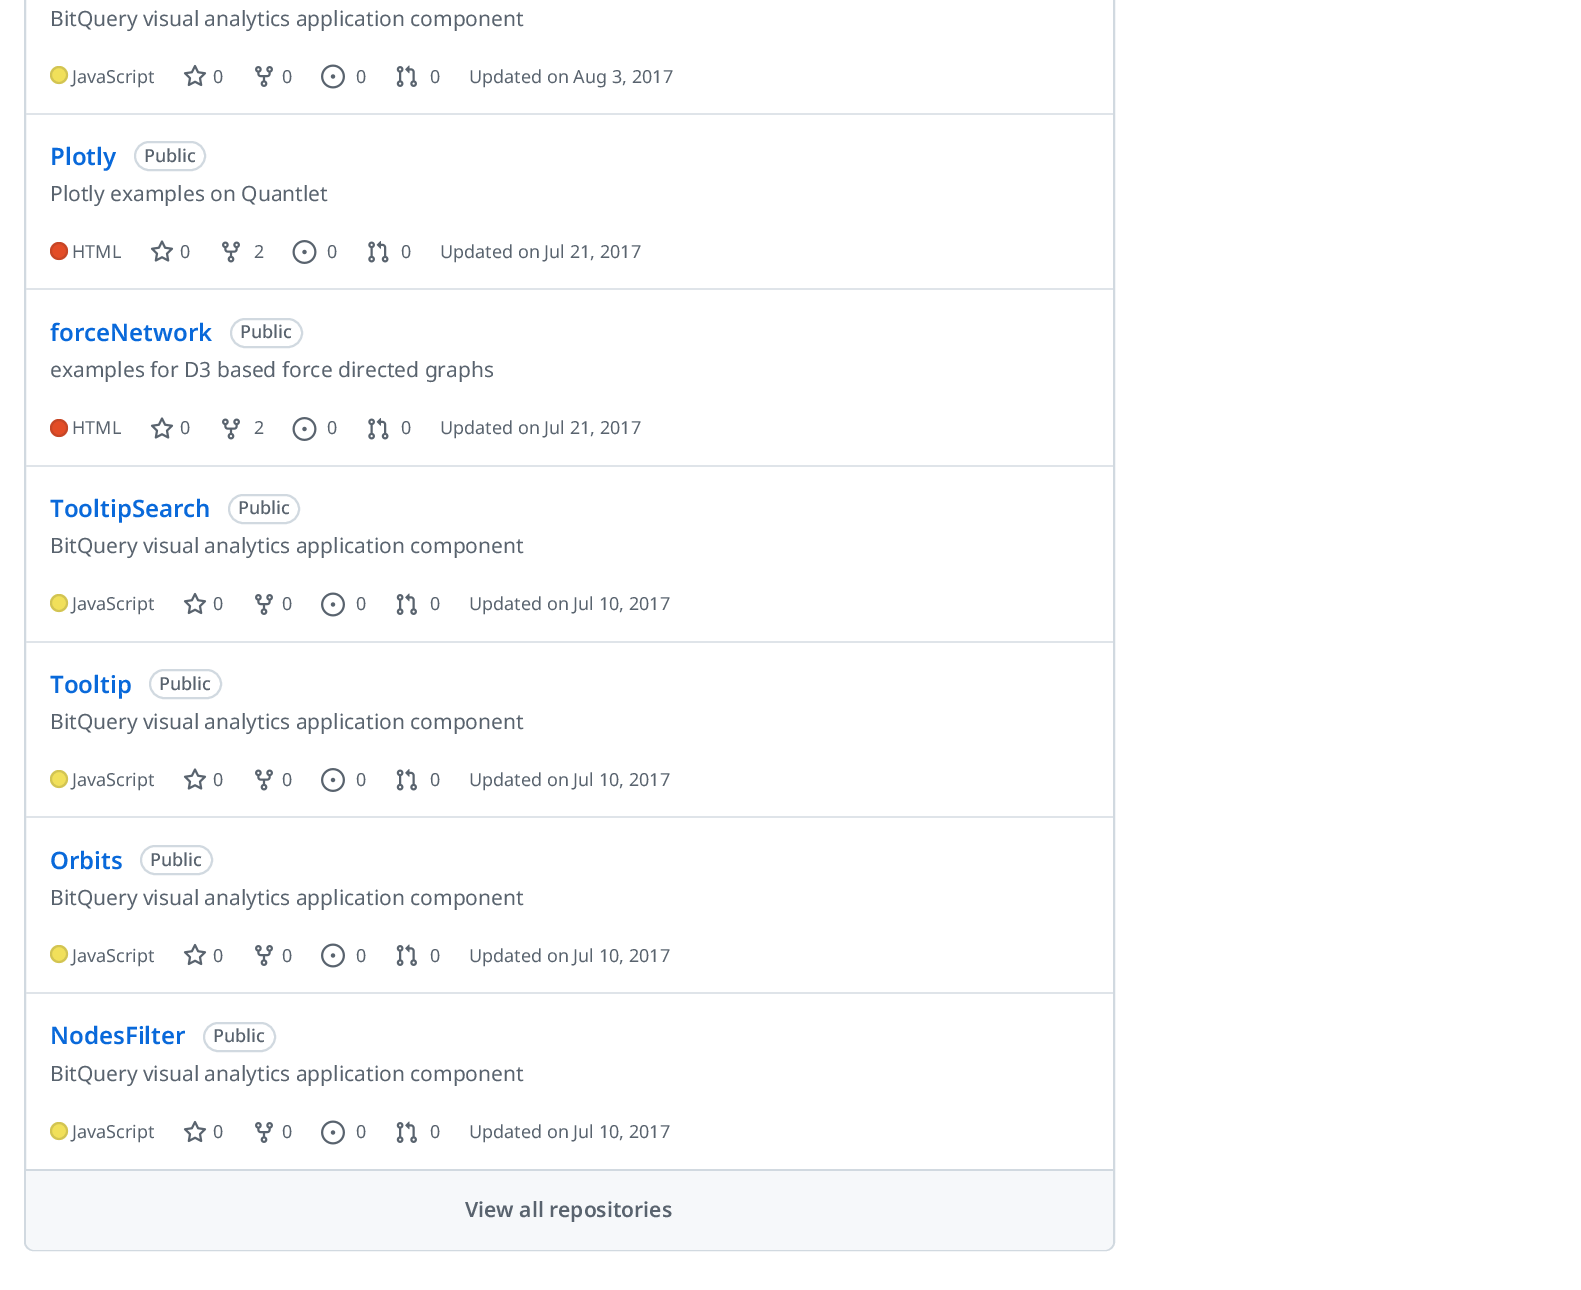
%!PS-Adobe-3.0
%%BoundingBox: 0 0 1581 1290
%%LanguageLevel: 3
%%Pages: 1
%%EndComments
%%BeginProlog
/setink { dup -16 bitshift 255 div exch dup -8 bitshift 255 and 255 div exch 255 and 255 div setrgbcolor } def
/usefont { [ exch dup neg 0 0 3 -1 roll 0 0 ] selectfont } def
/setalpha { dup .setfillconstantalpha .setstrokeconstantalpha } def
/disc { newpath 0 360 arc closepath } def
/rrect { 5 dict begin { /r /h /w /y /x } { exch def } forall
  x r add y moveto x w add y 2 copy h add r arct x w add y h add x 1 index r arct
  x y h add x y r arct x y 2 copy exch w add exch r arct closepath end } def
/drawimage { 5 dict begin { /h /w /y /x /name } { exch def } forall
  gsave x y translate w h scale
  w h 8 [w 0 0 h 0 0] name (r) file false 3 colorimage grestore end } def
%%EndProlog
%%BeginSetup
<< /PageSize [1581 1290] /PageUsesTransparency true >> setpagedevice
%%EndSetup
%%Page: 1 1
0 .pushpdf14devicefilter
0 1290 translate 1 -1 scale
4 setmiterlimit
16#FFFFFF setink
0 0 1581 1290 rectfill
16#D1D9E0 setink
2 setlinewidth
25 -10 1089 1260 8 rrect stroke
/NotoSans-Regular 21 usefont
16#59636E setink
50 26 moveto (BitQuery visual analytics application component) show
16#F1E05A setink
59 75 9 disc fill
0.15 setalpha
16#1F2328 setink
59 75 8 disc stroke
/NotoSans-Regular 18 usefont
1 setalpha
16#59636E setink
72 83 moveto (JavaScript) show
(img1.raw) 183 64 24 23 drawimage
213 83 moveto (0) show
(img2.raw) 255 66 18 21 drawimage
282 83 moveto (0) show
(img3.raw) 321 64 24 25 drawimage
356 83 moveto (0) show
(img4.raw) 396 65 21 22 drawimage
430 83 moveto (0) show
469 83 moveto (Updated on Aug 3, 2017) show
16#DFE4E9 setink
26 113 1087 2 rectfill
/NotoSans-SemiBold 24 usefont
16#0969DA setink
50 165 moveto (Plotly) show
16#D1D9E0 setink
135 142 70 28 14 rrect stroke
/NotoSans-Medium 18 usefont
16#59636E setink
144 162 moveto (Public) show
/NotoSans-Regular 21 usefont
50 201 moveto (Plotly examples on Quantlet) show
16#E34C26 setink
59 251 9 disc fill
0.15 setalpha
16#1F2328 setink
59 251 8 disc stroke
/NotoSans-Regular 18 usefont
1 setalpha
16#59636E setink
72 258 moveto (HTML) show
(img5.raw) 150 240 24 22 drawimage
180 258 moveto (0) show
(img6.raw) 222 241 18 22 drawimage
254 258 moveto (2) show
(img7.raw) 292 240 25 24 drawimage
327 258 moveto (0) show
(img8.raw) 368 241 21 22 drawimage
401 258 moveto (0) show
440 258 moveto (Updated on Jul 21, 2017) show
16#DFE4E9 setink
26 288 1087 2 rectfill
/NotoSans-SemiBold 24 usefont
16#0969DA setink
50 341 moveto (forceNetwork) show
16#D1D9E0 setink
231 319 71 28 14 rrect stroke
/NotoSans-Medium 18 usefont
16#59636E setink
240 338 moveto (Public) show
/NotoSans-Regular 21 usefont
50 377 moveto (examples for D3 based force directed graphs) show
16#E34C26 setink
59 428 9 disc fill
0.15 setalpha
16#1F2328 setink
59 428 8 disc stroke
/NotoSans-Regular 18 usefont
1 setalpha
16#59636E setink
72 434 moveto (HTML) show
(img5.raw) 150 417 24 22 drawimage
180 434 moveto (0) show
(img6.raw) 222 418 18 22 drawimage
254 434 moveto (2) show
(img7.raw) 292 417 25 24 drawimage
327 434 moveto (0) show
(img8.raw) 368 418 21 22 drawimage
401 434 moveto (0) show
440 434 moveto (Updated on Jul 21, 2017) show
16#DFE4E9 setink
26 465 1087 2 rectfill
/NotoSans-SemiBold 24 usefont
16#0969DA setink
50 517 moveto (TooltipSearch) show
16#D1D9E0 setink
229 495 70 28 14 rrect stroke
/NotoSans-Medium 18 usefont
16#59636E setink
238 514 moveto (Public) show
/NotoSans-Regular 21 usefont
50 553 moveto (BitQuery visual analytics application component) show
16#F1E05A setink
59 603 9 disc fill
0.15 setalpha
16#1F2328 setink
59 603 8 disc stroke
/NotoSans-Regular 18 usefont
1 setalpha
16#59636E setink
72 610 moveto (JavaScript) show
(img1.raw) 183 592 24 23 drawimage
213 610 moveto (0) show
(img2.raw) 255 594 18 21 drawimage
282 610 moveto (0) show
(img3.raw) 321 592 24 25 drawimage
356 610 moveto (0) show
(img4.raw) 396 593 21 22 drawimage
430 610 moveto (0) show
469 610 moveto (Updated on Jul 10, 2017) show
16#DFE4E9 setink
26 641 1087 2 rectfill
/NotoSans-SemiBold 24 usefont
16#0969DA setink
50 693 moveto (Tooltip) show
16#D1D9E0 setink
150 670 71 28 14 rrect stroke
/NotoSans-Medium 18 usefont
16#59636E setink
159 690 moveto (Public) show
/NotoSans-Regular 21 usefont
50 729 moveto (BitQuery visual analytics application component) show
16#F1E05A setink
59 779 9 disc fill
0.15 setalpha
16#1F2328 setink
59 779 8 disc stroke
/NotoSans-Regular 18 usefont
1 setalpha
16#59636E setink
72 786 moveto (JavaScript) show
(img5.raw) 183 768 24 22 drawimage
213 786 moveto (0) show
(img6.raw) 255 769 18 22 drawimage
282 786 moveto (0) show
(img9.raw) 321 768 24 24 drawimage
356 786 moveto (0) show
(img10.raw) 396 769 21 22 drawimage
430 786 moveto (0) show
469 786 moveto (Updated on Jul 10, 2017) show
16#DFE4E9 setink
26 816 1087 2 rectfill
/NotoSans-SemiBold 24 usefont
16#0969DA setink
50 869 moveto (Orbits) show
16#D1D9E0 setink
141 846 71 28 14 rrect stroke
/NotoSans-Medium 18 usefont
16#59636E setink
150 866 moveto (Public) show
/NotoSans-Regular 21 usefont
50 905 moveto (BitQuery visual analytics application component) show
16#F1E05A setink
59 954 9 disc fill
0.15 setalpha
16#1F2328 setink
59 954 8 disc stroke
/NotoSans-Regular 18 usefont
1 setalpha
16#59636E setink
72 962 moveto (JavaScript) show
(img1.raw) 183 943 24 23 drawimage
213 962 moveto (0) show
(img2.raw) 255 945 18 21 drawimage
282 962 moveto (0) show
(img3.raw) 321 943 24 25 drawimage
356 962 moveto (0) show
(img4.raw) 396 944 21 22 drawimage
430 962 moveto (0) show
469 962 moveto (Updated on Jul 10, 2017) show
16#DFE4E9 setink
26 992 1087 2 rectfill
/NotoSans-SemiBold 24 usefont
16#0969DA setink
50 1044 moveto (NodesFilter) show
16#D1D9E0 setink
204 1023 71 28 14 rrect stroke
/NotoSans-Medium 18 usefont
16#59636E setink
213 1042 moveto (Public) show
/NotoSans-Regular 21 usefont
50 1081 moveto (BitQuery visual analytics application component) show
16#F1E05A setink
59 1131 9 disc fill
0.15 setalpha
16#1F2328 setink
59 1131 8 disc stroke
/NotoSans-Regular 18 usefont
1 setalpha
16#59636E setink
72 1138 moveto (JavaScript) show
(img1.raw) 183 1120 24 23 drawimage
213 1138 moveto (0) show
(img2.raw) 255 1122 18 21 drawimage
282 1138 moveto (0) show
(img3.raw) 321 1120 24 25 drawimage
356 1138 moveto (0) show
(img4.raw) 396 1121 21 22 drawimage
430 1138 moveto (0) show
469 1138 moveto (Updated on Jul 10, 2017) show
16#F6F8FA setink
26 1169 moveto 1113 1169 lineto 1113 1241 lineto 1113 1246 1109 1250 1104 1250 curveto 35 1250 lineto 30 1250 26 1246 26 1241 curveto closepath fill
16#D1D9E0 setink
26 1169 1087 2 rectfill
/NotoSans-SemiBold 21 usefont
16#59636E setink
465 1217 moveto (View all repositories) show
.poppdf14devicefilter showpage
%%EOF
